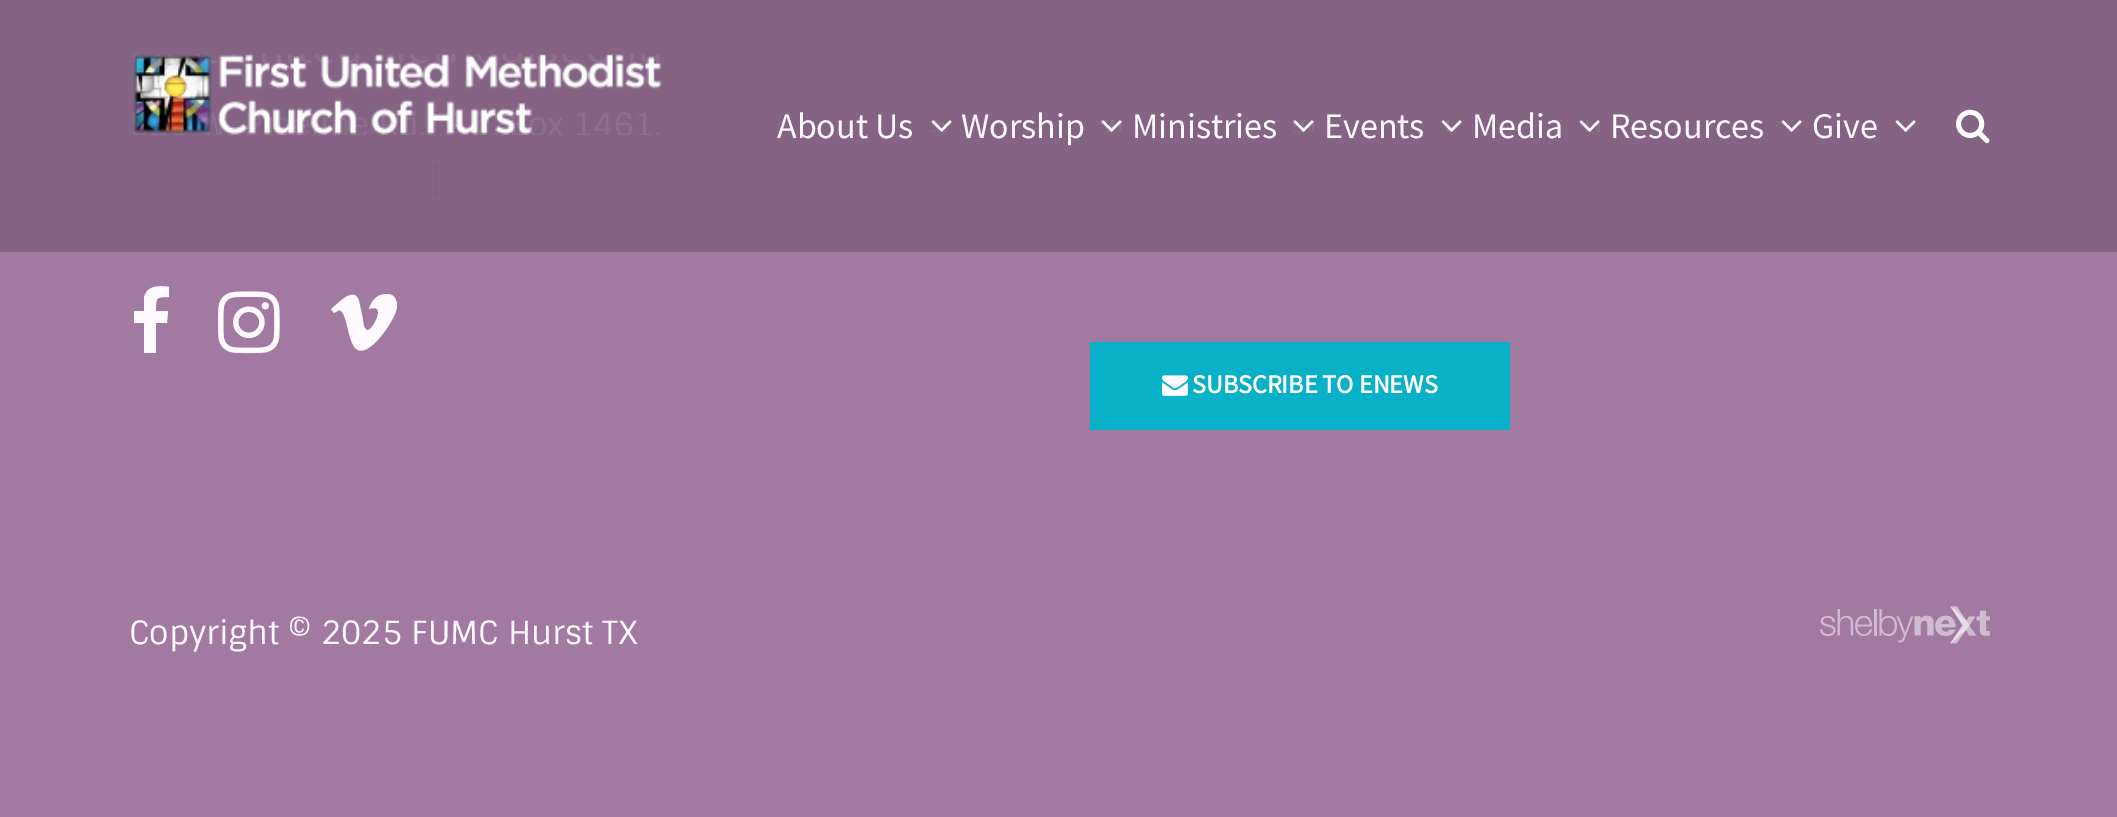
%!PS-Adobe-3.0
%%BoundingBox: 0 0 2117 817
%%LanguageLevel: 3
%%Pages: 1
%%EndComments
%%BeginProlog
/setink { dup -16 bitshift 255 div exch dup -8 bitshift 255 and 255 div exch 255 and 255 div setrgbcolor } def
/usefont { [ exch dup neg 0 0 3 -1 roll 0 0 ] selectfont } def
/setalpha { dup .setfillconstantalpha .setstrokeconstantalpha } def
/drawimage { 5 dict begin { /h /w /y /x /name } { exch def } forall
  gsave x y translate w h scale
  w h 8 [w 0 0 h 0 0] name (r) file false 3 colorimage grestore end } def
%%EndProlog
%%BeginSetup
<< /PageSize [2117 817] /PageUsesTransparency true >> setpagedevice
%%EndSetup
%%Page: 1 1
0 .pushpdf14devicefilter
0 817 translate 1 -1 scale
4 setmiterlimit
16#A179A1 setink
0 0 2117 817 rectfill
[
    [434 164 4 32 16#79617C]
] { aload pop setink rectfill } forall
0.5 setalpha
[
    [0 0 2117 252 16#3C3E44]
] { aload pop setink rectfill } forall
0.8 setalpha
[
    [0 0 2117 252 16#89658A]
] { aload pop setink rectfill } forall
1 setalpha
(img1.raw) 133 54 529 81 drawimage
/SourceSansPro-Regular 36 usefont
16#FFFAFF setink
777 138 moveto (About Us) show
(img2.raw) 931 120 21 12 drawimage
961 138 moveto (Worship) show
(img3.raw) 1101 120 21 12 drawimage
1132 138 moveto (Ministries) show
(img4.raw) 1293 120 21 12 drawimage
1324 138 moveto (Events) show
(img5.raw) 1441 120 21 12 drawimage
1472 138 moveto (Media) show
(img6.raw) 1579 120 21 12 drawimage
1610 138 moveto (Resources) show
(img7.raw) 1781 120 21 12 drawimage
1812 138 moveto (Give) show
(img7.raw) 1895 120 21 12 drawimage
(img8.raw) 1956 109 34 35 drawimage
169 287 moveto 169 297 lineto 155 297 156 298 156 311 curveto 168 311 lineto 167 323 lineto 156 323 lineto 156 353 lineto 144 353 lineto 144 323 lineto 134 323 lineto 134 311 lineto 144 311 lineto 144 298 lineto 146 286 158 285 169 287 curveto closepath fill
(img9.raw) 218 291 62 63 drawimage
397 307 moveto 396 318 371 356 358 350 curveto 347 345 348 311 339 310 curveto 334 313 lineto 331 309 lineto 338 304 354 285 359 301 curveto 363 320 lineto 363 323 364 329 367 330 curveto 372 332 388 302 369 309 curveto 372 299 378 294 387 294 curveto 394 294 397 299 397 307 curveto closepath fill
16#08B1C7 setink
1090 342 420 88 rectfill
(img10.raw) 1162 375 26 21 drawimage
/SourceSansPro-Bold 26 usefont
16#FFFAFF setink
1192 393 moveto (SUBSCRIBE TO ENEWS) show
/Sintony-Regular 32 usefont
129 644 moveto (Copyright © 2025 FUMC Hurst TX) show
(img11.raw) 1820 606 170 38 drawimage
.poppdf14devicefilter showpage
%%EOF
